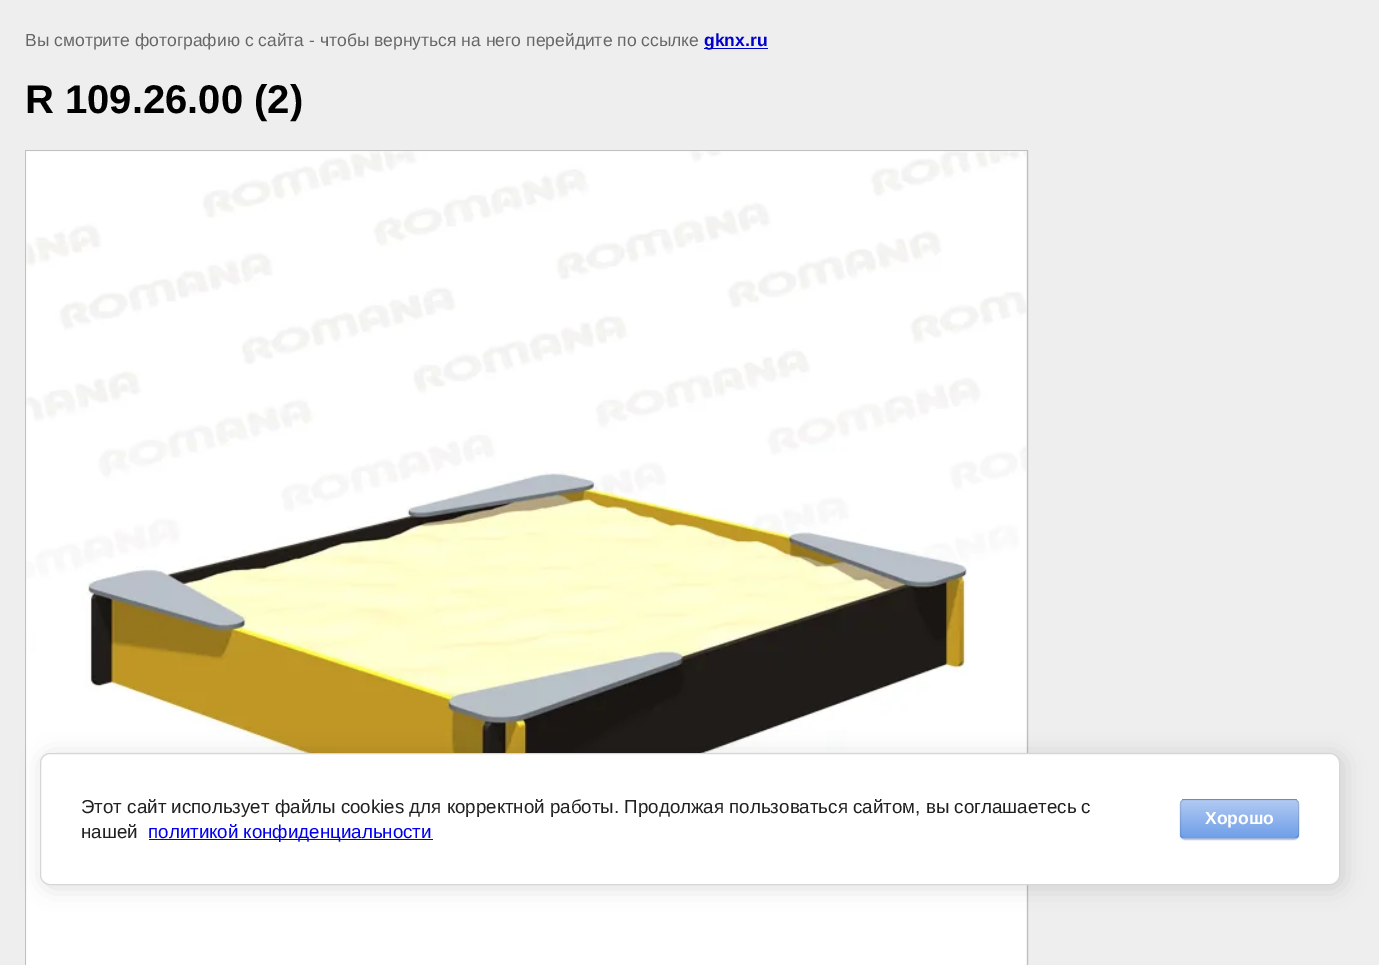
%!PS-Adobe-3.0
%%BoundingBox: 0 0 1379 965
%%LanguageLevel: 3
%%Pages: 1
%%EndComments
%%BeginProlog
/setink { dup -16 bitshift 255 div exch dup -8 bitshift 255 and 255 div exch 255 and 255 div setrgbcolor } def
/usefont { [ exch dup neg 0 0 3 -1 roll 0 0 ] selectfont } def
/setalpha { dup .setfillconstantalpha .setstrokeconstantalpha } def
/rrect { 5 dict begin { /r /h /w /y /x } { exch def } forall
  x r add y moveto x w add y 2 copy h add r arct x w add y h add x 1 index r arct
  x y h add x y r arct x y 2 copy exch w add exch r arct closepath end } def
/softshadow { 12 dict begin { /a /b /q /h /w /y /x } { exch def } forall gsave /was 0 def
  9 -2 -9 { dup b mul 4 div /e exch def 1 sub .425 mul 2.718 exch exp 1 add a .99 .min exch div /now exch def
    1 1 now sub 1 was sub div sub setalpha /was now def
    w h .min e 2 mul add 0 gt { x e sub y e sub w e 2 mul add h e 2 mul add
      q e add b .6 mul add w h .min 2 div e add .min 0 .max rrect fill } if } for grestore end } def
/drawimage { 5 dict begin { /h /w /y /x /name } { exch def } forall
  gsave x y translate w h scale
  w h 8 [w 0 0 h 0 0] name (r) file false 3 colorimage grestore end } def
%%EndProlog
%%BeginSetup
<< /PageSize [1379 965] /PageUsesTransparency true >> setpagedevice
%%EndSetup
%%Page: 1 1
0 .pushpdf14devicefilter
0 965 translate 1 -1 scale
4 setmiterlimit
16#EEEEEE setink
0 0 1379 965 rectfill
/LiberationSans-Regular 17.5 usefont
16#666666 setink
25 46 moveto (Вы смотрите фотографию с сайта - чтобы вернуться на него перейдите по ссылке) show
16#0000CC setink
704 48 64 1 rectfill
/LiberationSans-Bold 17.5 usefont
704 46 moveto (gknx.ru) show
/LiberationSans-Bold 40 usefont
16#000000 setink
25 113 moveto (R 109.26.00 \(2\)) show
16#C0C0C0 setink
25.5 150.5 1002 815 rectstroke
(img1.raw) 26 151 1001 814 drawimage
16#000000 setink
43 755 1300 133 10 11 0.14 softshadow
16#FFFFFF setink
40.5 753.5 1299 131 9.5 rrect gsave fill grestore
16#D6D6D6 setink
stroke
/LiberationSans-Regular 18.75 usefont
16#212121 setink
81 813 moveto (Этот сайт использует файлы cookies для корректной работы. Продолжая пользоваться сайтом, вы соглашаетесь с) show
81 838 moveto (нашей) show
16#0000EE setink
149 839 284 1 rectfill
148 838 moveto (политикой конфиденциальности) show
16#000000 setink
1180 800 119 40 5 0.5 0.2 softshadow
gsave
1180 799 119 40 5 rrect clip newpath
gsave 1180 799 moveto 1299 799 lineto 1299 800 lineto 1180 800 lineto closepath clip newpath
<< /ShadingType 2 /ColorSpace /DeviceRGB /Coords [1239 763 1239 800] /Extend [true true] /Function << /FunctionType 2 /Domain [0 1] /C0 [0.694 0.792 0.953] /C1 [0.435 0.62 0.91] /N 1 >> >> shfill grestore
gsave 1180 800 moveto 1299 800 lineto 1299 838 lineto 1180 838 lineto closepath clip newpath
<< /ShadingType 2 /ColorSpace /DeviceRGB /Coords [1239 800 1239 838] /Extend [true true] /Function << /FunctionType 2 /Domain [0 1] /C0 [0.694 0.792 0.953] /C1 [0.435 0.62 0.91] /N 1 >> >> shfill grestore
gsave 1180 838 moveto 1299 838 lineto 1299 839 lineto 1180 839 lineto closepath clip newpath
<< /ShadingType 2 /ColorSpace /DeviceRGB /Coords [1239 838 1239 875] /Extend [true true] /Function << /FunctionType 2 /Domain [0 1] /C0 [0.694 0.792 0.953] /C1 [0.435 0.62 0.91] /N 1 >> >> shfill grestore
grestore
0.1 setalpha
1180.5 799.5 118 39 4.5 rrect stroke
/LiberationSans-Bold 17.5 usefont
1 setalpha
16#FFFFFF setink
1205 824 moveto (Хорошо) show
.poppdf14devicefilter showpage
%%EOF
